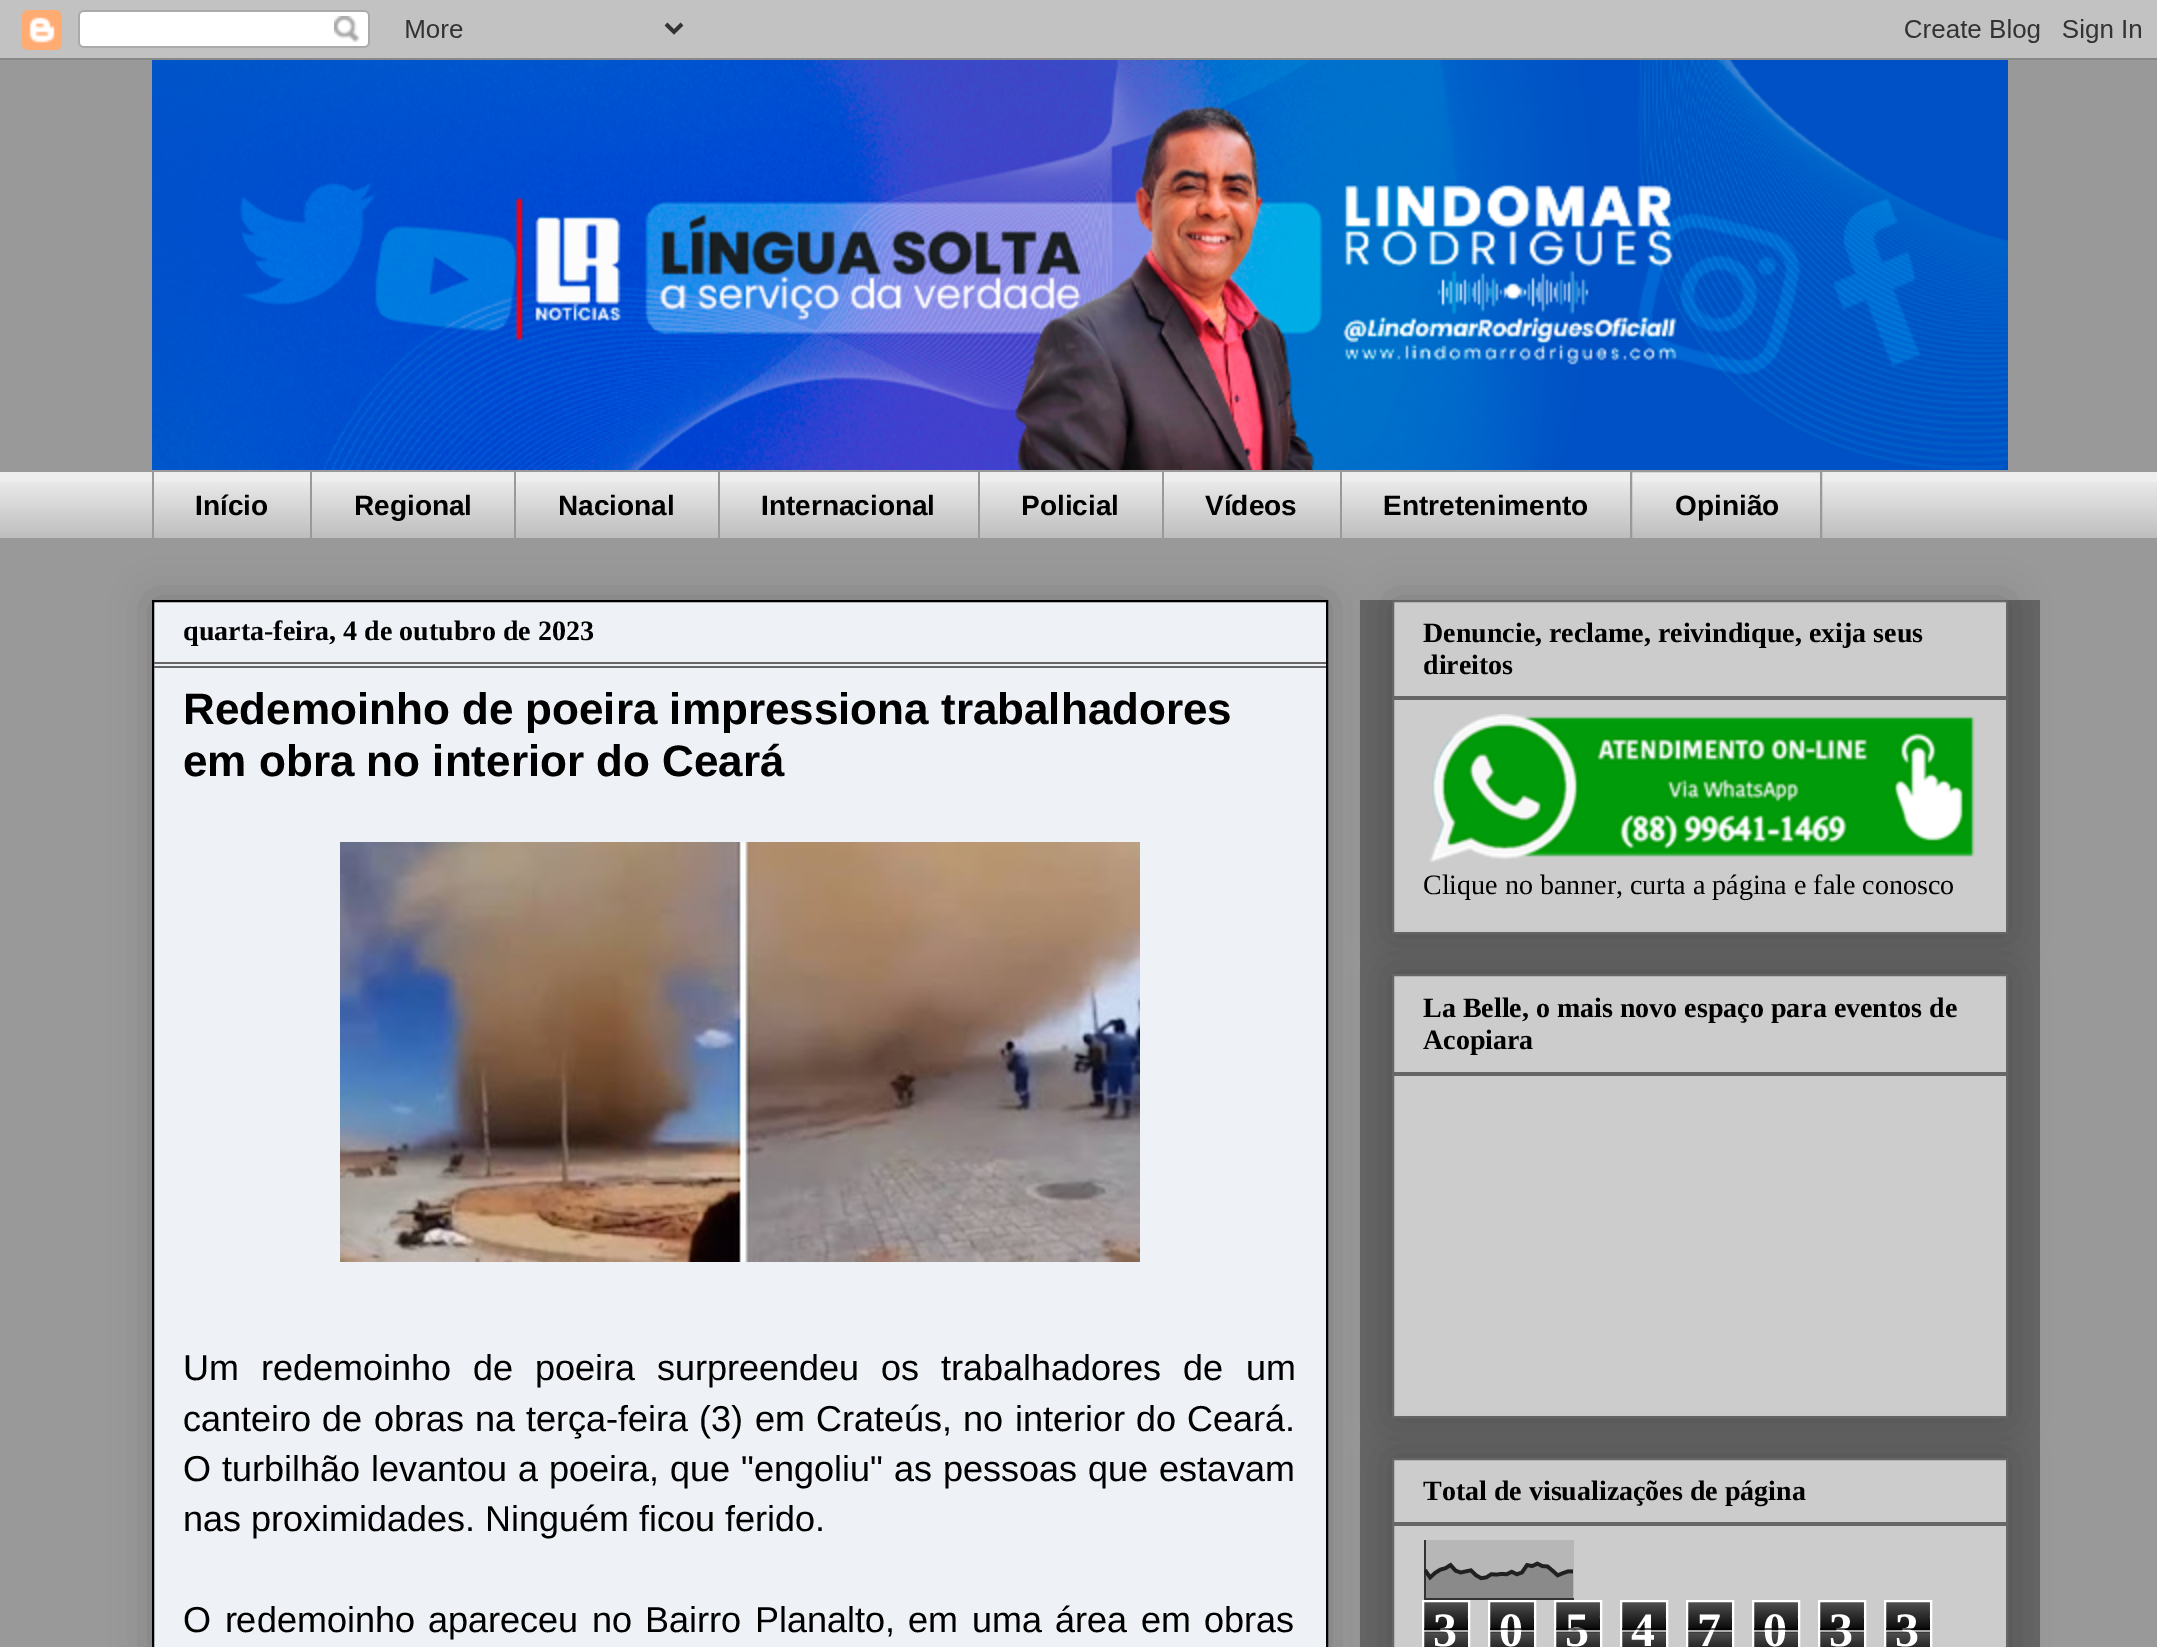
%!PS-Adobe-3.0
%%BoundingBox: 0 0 2157 1647
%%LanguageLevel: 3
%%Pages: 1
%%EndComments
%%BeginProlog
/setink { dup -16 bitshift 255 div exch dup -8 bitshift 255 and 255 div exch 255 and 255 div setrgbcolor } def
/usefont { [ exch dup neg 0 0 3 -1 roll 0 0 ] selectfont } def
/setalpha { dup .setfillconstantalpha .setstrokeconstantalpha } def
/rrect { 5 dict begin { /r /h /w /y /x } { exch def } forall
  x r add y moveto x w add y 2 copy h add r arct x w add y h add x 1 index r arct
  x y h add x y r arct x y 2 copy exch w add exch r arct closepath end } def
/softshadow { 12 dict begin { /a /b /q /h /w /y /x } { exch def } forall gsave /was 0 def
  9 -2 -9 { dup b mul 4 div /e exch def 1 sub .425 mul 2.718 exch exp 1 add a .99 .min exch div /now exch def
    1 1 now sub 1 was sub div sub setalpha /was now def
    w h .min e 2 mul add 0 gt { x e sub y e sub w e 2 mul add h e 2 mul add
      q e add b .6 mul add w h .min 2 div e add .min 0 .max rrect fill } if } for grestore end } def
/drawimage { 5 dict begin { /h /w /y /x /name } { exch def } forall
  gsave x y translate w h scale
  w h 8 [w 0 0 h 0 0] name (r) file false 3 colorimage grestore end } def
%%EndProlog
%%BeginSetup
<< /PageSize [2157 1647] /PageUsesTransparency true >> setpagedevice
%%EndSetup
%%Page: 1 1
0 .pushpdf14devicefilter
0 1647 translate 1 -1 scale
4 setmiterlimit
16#999999 setink
0 0 2157 1647 rectfill
(img1.raw) 0 0 2157 60 drawimage
(img2.raw) 152 60 1856 410 drawimage
16#EEEEEE setink
0 472 2157 66 rectfill
(img3.raw) 0 482 2157 56 drawimage
16#999999 setink
152 470 2 70 rectfill
/LiberationSans-Bold 28 usefont
16#000000 setink
195 515 moveto (Início) show
16#999999 setink
310 470 2 70 rectfill
16#000000 setink
354 515 moveto (Regional) show
16#999999 setink
514 470 2 70 rectfill
16#000000 setink
558 515 moveto (Nacional) show
16#999999 setink
718 470 2 70 rectfill
16#000000 setink
761 515 moveto (Internacional) show
16#999999 setink
978 470 2 70 rectfill
16#000000 setink
1021 515 moveto (Policial) show
16#999999 setink
1162 470 2 70 rectfill
16#000000 setink
1205 515 moveto (Vídeos) show
16#999999 setink
1340 470 2 70 rectfill
16#000000 setink
1383 515 moveto (Entretenimento) show
16#999999 setink
2 setlinewidth
1631 471 190 68 rectstroke
16#000000 setink
1675 515 moveto (Opinião) show
152 600 1176 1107 0 20 0.2 softshadow
16#EEF2F6 setink
153 601 moveto 1327 601 lineto 1327 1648 lineto 153 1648 lineto closepath gsave fill grestore
16#000000 setink
stroke
16#666666 setink
154 662 1172 2 rectfill
/LiberationSerif-Bold 28 usefont
16#000000 setink
183 640 moveto (quarta-feira, 4 de outubro de 2023) show
16#666666 setink
154 666 1172 2 rectfill
/LiberationSans-Bold 44 usefont
16#000000 setink
183 724 moveto (Redemoinho de poeira impressiona trabalhadores) show
183 776 moveto (em obra no interior do Ceará) show
(img4.raw) 340 842 800 420 drawimage
/LiberationSans-Regular 36 usefont
183 1380 moveto 12 0 32 (Um redemoinho de poeira surpreendeu os trabalhadores de um) widthshow
183 1431 moveto 1.25 0 32 (canteiro de obras na terça-feira \(3\) em Crateús, no interior do Ceará.) widthshow
183 1481 moveto 1 0 32 (O turbilhão levantou a poeira, que "engoliu" as pessoas que estavam) widthshow
183 1531 moveto (nas proximidades. Ninguém ficou ferido.) show
183 1632 moveto 3.5 0 32 (O redemoinho apareceu no Bairro Planalto, em uma área em obras) widthshow
16#666666 setink
1360 600 680 1047 rectfill
16#000000 setink
1392 600 616 334 0 20 0.2 softshadow
16#CCCCCC setink
1393 601 moveto 2007 601 lineto 2007 933 lineto 1393 933 lineto closepath gsave fill grestore
16#666666 setink
stroke
/LiberationSerif-Bold 28 usefont
16#000000 setink
1423 642 moveto (Denuncie, reclame, reivindique, exija seus) show
1423 674 moveto (direitos) show
16#666666 setink
1394 696 612 4 rectfill
(img5.raw) 1429 714 546 148 drawimage
/LiberationSerif-Regular 28 usefont
16#000000 setink
1423 894 moveto (Clique no banner, curta a página e fale conosco) show
1392 974 616 444 0 20 0.2 softshadow
16#CCCCCC setink
1393 975 moveto 2007 975 lineto 2007 1417 lineto 1393 1417 lineto closepath gsave fill grestore
16#666666 setink
stroke
/LiberationSerif-Bold 28 usefont
16#000000 setink
1423 1017 moveto (La Belle, o mais novo espaço para eventos de) show
1423 1049 moveto (Acopiara) show
16#666666 setink
1394 1072 612 4 rectfill
16#000000 setink
1392 1458 616 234 0 20 0.2 softshadow
16#CCCCCC setink
1393 1459 moveto 2007 1459 lineto 2007 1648 lineto 1393 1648 lineto closepath gsave fill grestore
16#666666 setink
stroke
16#000000 setink
1423 1500 moveto (Total de visualizações de página) show
16#666666 setink
1394 1522 612 4 rectfill
(img6.raw) 1424 1540 150 60 drawimage
(img7.raw) 1424 1602 44 45 drawimage
16#FFFFFF setink
1423 1601 46 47 rectstroke
/LiberationSerif-Bold 48 usefont
1433 1646 moveto (3) show
0.65 setalpha
16#000000 setink
1424 1628 44 2 rectfill
16#FFFFFF setink
1424 1630 44 2 rectfill
1 setalpha
(img7.raw) 1490 1602 44 45 drawimage
1489 1601 46 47 rectstroke
1499 1646 moveto (0) show
0.65 setalpha
16#000000 setink
1490 1628 44 2 rectfill
16#FFFFFF setink
1490 1630 44 2 rectfill
1 setalpha
(img7.raw) 1556 1602 44 45 drawimage
1555 1601 46 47 rectstroke
1565 1646 moveto (5) show
0.65 setalpha
16#000000 setink
1556 1628 44 2 rectfill
16#FFFFFF setink
1556 1630 44 2 rectfill
1 setalpha
(img7.raw) 1622 1602 44 45 drawimage
1621 1601 46 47 rectstroke
1631 1646 moveto (4) show
0.65 setalpha
16#000000 setink
1622 1628 44 2 rectfill
16#FFFFFF setink
1622 1630 44 2 rectfill
1 setalpha
(img7.raw) 1688 1602 44 45 drawimage
1687 1601 46 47 rectstroke
1697 1646 moveto (7) show
0.65 setalpha
16#000000 setink
1688 1628 44 2 rectfill
16#FFFFFF setink
1688 1630 44 2 rectfill
1 setalpha
(img7.raw) 1754 1602 44 45 drawimage
1753 1601 46 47 rectstroke
1763 1646 moveto (0) show
0.65 setalpha
16#000000 setink
1754 1628 44 2 rectfill
16#FFFFFF setink
1754 1630 44 2 rectfill
1 setalpha
(img7.raw) 1820 1602 44 45 drawimage
1819 1601 46 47 rectstroke
1829 1646 moveto (3) show
0.65 setalpha
16#000000 setink
1820 1628 44 2 rectfill
16#FFFFFF setink
1820 1630 44 2 rectfill
1 setalpha
(img7.raw) 1886 1602 44 45 drawimage
1885 1601 46 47 rectstroke
1895 1646 moveto (3) show
0.65 setalpha
16#000000 setink
1886 1628 44 2 rectfill
16#FFFFFF setink
1886 1630 44 2 rectfill
.poppdf14devicefilter showpage
%%EOF
